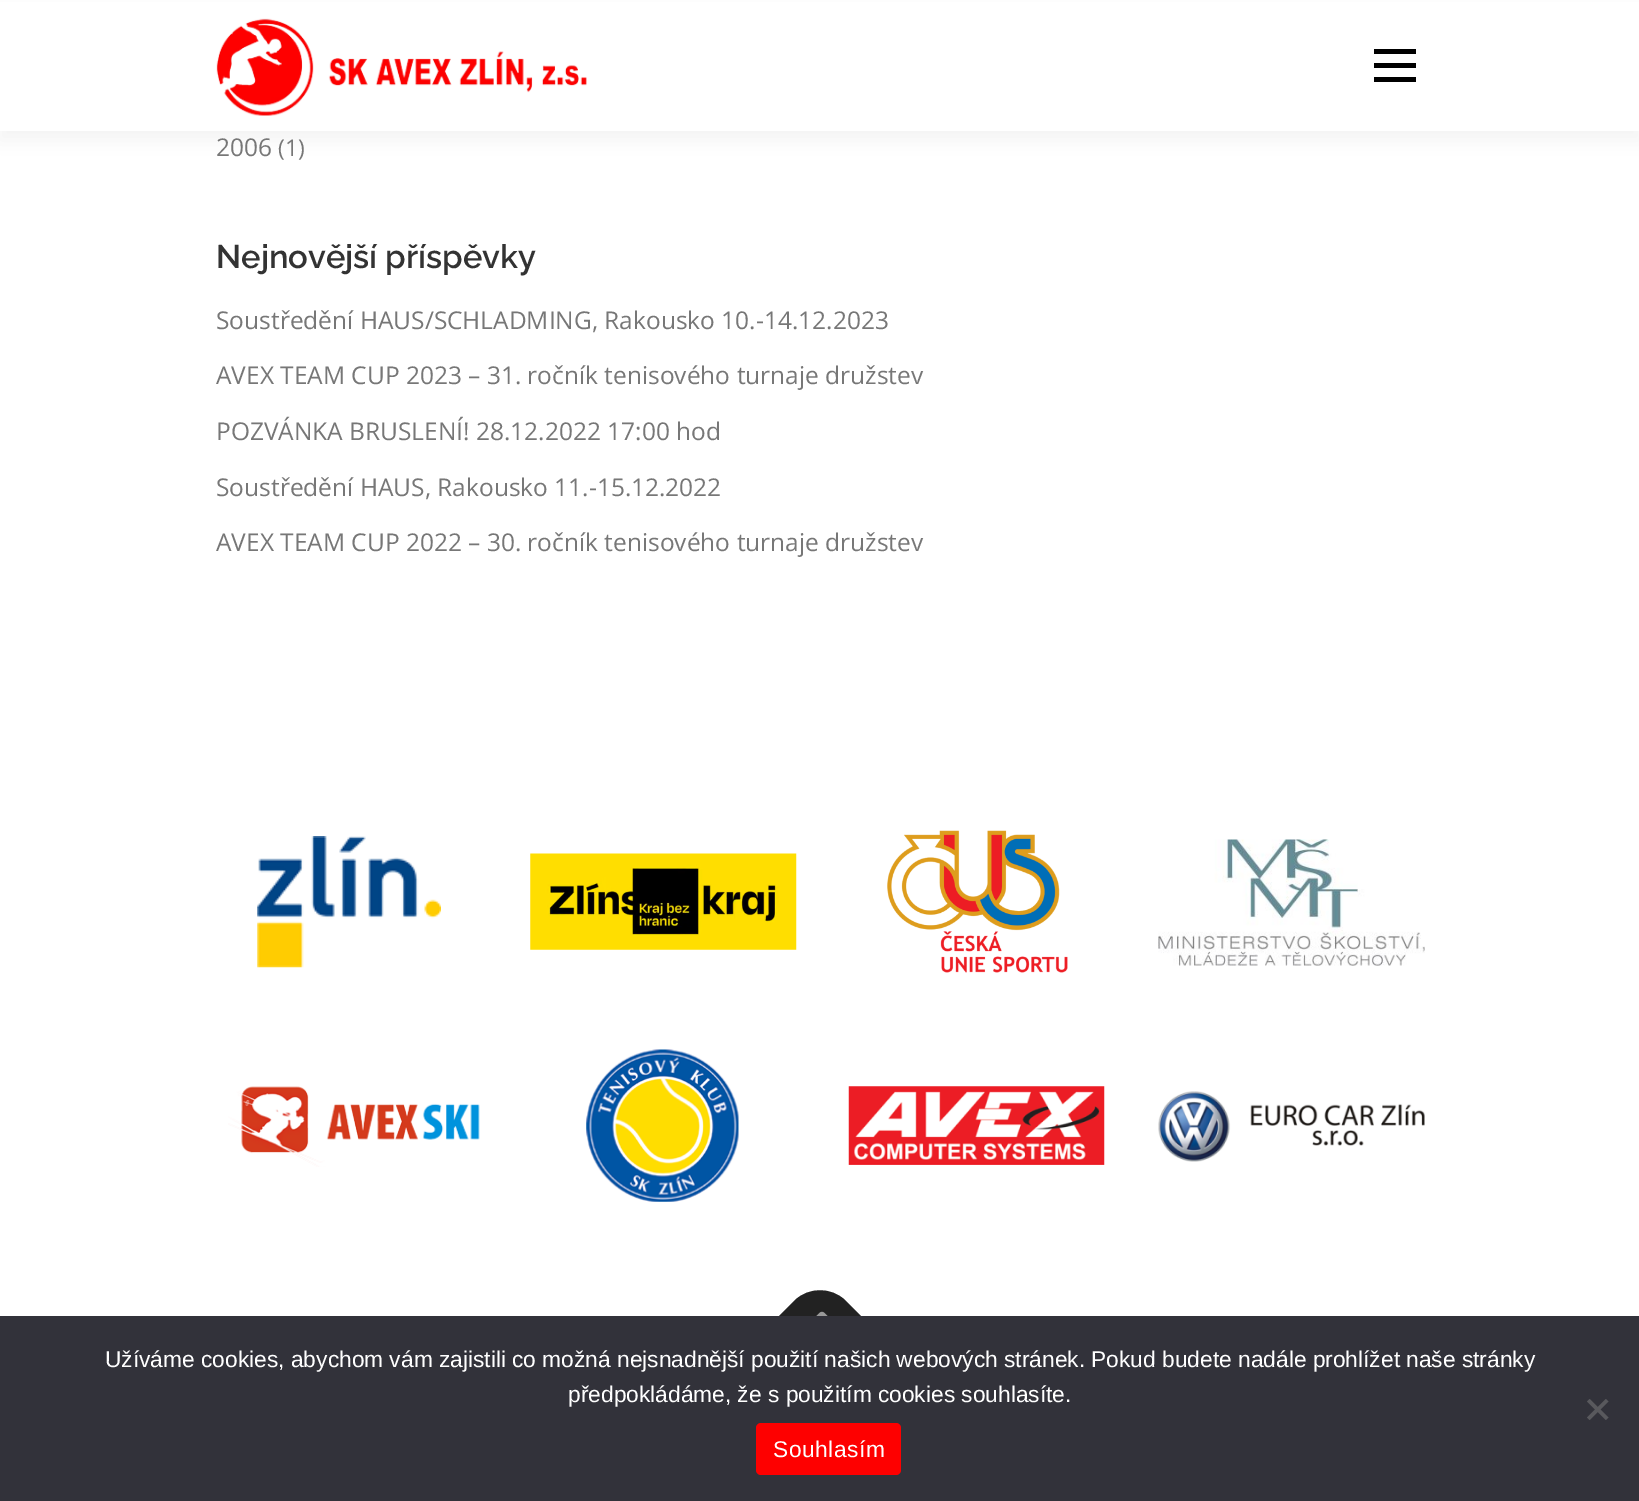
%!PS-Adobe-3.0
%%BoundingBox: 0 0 1639 1501
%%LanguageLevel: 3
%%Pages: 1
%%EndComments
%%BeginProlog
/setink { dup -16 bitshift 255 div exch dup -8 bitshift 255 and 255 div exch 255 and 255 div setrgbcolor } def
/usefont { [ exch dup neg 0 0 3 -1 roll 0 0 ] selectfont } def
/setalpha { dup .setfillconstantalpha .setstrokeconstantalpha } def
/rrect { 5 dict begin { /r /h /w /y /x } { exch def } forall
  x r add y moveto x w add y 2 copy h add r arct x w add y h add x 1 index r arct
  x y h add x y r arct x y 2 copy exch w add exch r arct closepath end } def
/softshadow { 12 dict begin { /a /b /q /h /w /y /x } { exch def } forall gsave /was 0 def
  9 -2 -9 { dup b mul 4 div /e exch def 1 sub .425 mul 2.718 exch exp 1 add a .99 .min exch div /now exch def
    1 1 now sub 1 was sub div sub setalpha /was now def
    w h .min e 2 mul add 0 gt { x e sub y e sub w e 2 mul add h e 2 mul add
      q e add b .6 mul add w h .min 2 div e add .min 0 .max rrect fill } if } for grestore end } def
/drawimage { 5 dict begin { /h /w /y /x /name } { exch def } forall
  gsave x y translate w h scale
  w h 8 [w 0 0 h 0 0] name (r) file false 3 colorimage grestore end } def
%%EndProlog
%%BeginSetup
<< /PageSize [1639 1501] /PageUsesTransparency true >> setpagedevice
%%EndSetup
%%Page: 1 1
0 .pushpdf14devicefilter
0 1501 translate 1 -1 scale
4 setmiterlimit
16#FFFFFF setink
0 0 1639 1501 rectfill
16#323232 setink
0 9 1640 131 0 9 0.06 softshadow
16#FFFFFF setink
0 2 1639 129 rectfill
(img1.raw) 216 18 371 98 drawimage
[
    [1374 63 42 5 16#000000]
    [1374 49 42 5 16#000000]
    [1374 77 42 5 16#000000]
] { aload pop setink rectfill } forall
/OpenSans-Regular 24.5 usefont
16#777777 setink
216 156 moveto (2006) show
/OpenSans-Regular 23 usefont
278 156 moveto (\(1\)) show
/Raleway-SemiBold 32.75 usefont
16#333333 setink
216 268 moveto (Nejnovější příspěvky) show
/OpenSans-Regular 24.5 usefont
16#777777 setink
[
    [(Soustředění HAUS/SCHLADMING, Rakousko 10.-14.12.2023) 216 329]
    [(AVEX TEAM CUP 2023 – 31. ročník tenisového turnaje družstev) 216 384]
    [(POZVÁNKA BRUSLENÍ! 28.12.2022 17:00 hod) 216 440]
    [(Soustředění HAUS, Rakousko 11.-15.12.2022) 216 496]
    [(AVEX TEAM CUP 2022 – 30. ročník tenisového turnaje družstev) 216 551]
] { aload pop moveto show } forall
(img2.raw) 257 836 184 132 drawimage
(img3.raw) 530 853 267 97 drawimage
(img4.raw) 887 830 181 143 drawimage
(img5.raw) 1158 839 267 127 drawimage
(img6.raw) 228 1086 252 81 drawimage
(img7.raw) 586 1049 153 153 drawimage
(img8.raw) 848 1086 257 79 drawimage
(img9.raw) 1158 1091 267 71 drawimage
16#222222 setink
758 1337 moveto 795 1300 lineto 809 1287 831 1287 845 1300 curveto 882 1337 lineto 820 1399 lineto closepath fill
(img10.raw) 816 1311 12 5 drawimage
16#32323A setink
0 1316 1639 185 rectfill
/LiberationSans-Regular 22.75 usefont
16#FFFFFF setink
105 1367 moveto (Užíváme cookies, abychom vám zajistili co možná nejsnadnější použití našich webových stránek. Pokud budete nadále prohlížet naše stránky) show
568 1402 moveto (předpokládáme, že s použitím cookies souhlasíte.) show
16#59595D setink
1606 1399 moveto 1608.5 1401.5 lineto 1589.5 1420 lineto 1587 1417.5 lineto closepath fill
1587 1401.5 moveto 1589.5 1399 lineto 1608.5 1417.5 lineto 1606 1420 lineto closepath fill
16#FE0000 setink
756 1423 145 52 5 rrect fill
16#FFFFFF setink
773 1457 moveto 0.5 0 (Souhlasím) ashow
.poppdf14devicefilter showpage
%%EOF
